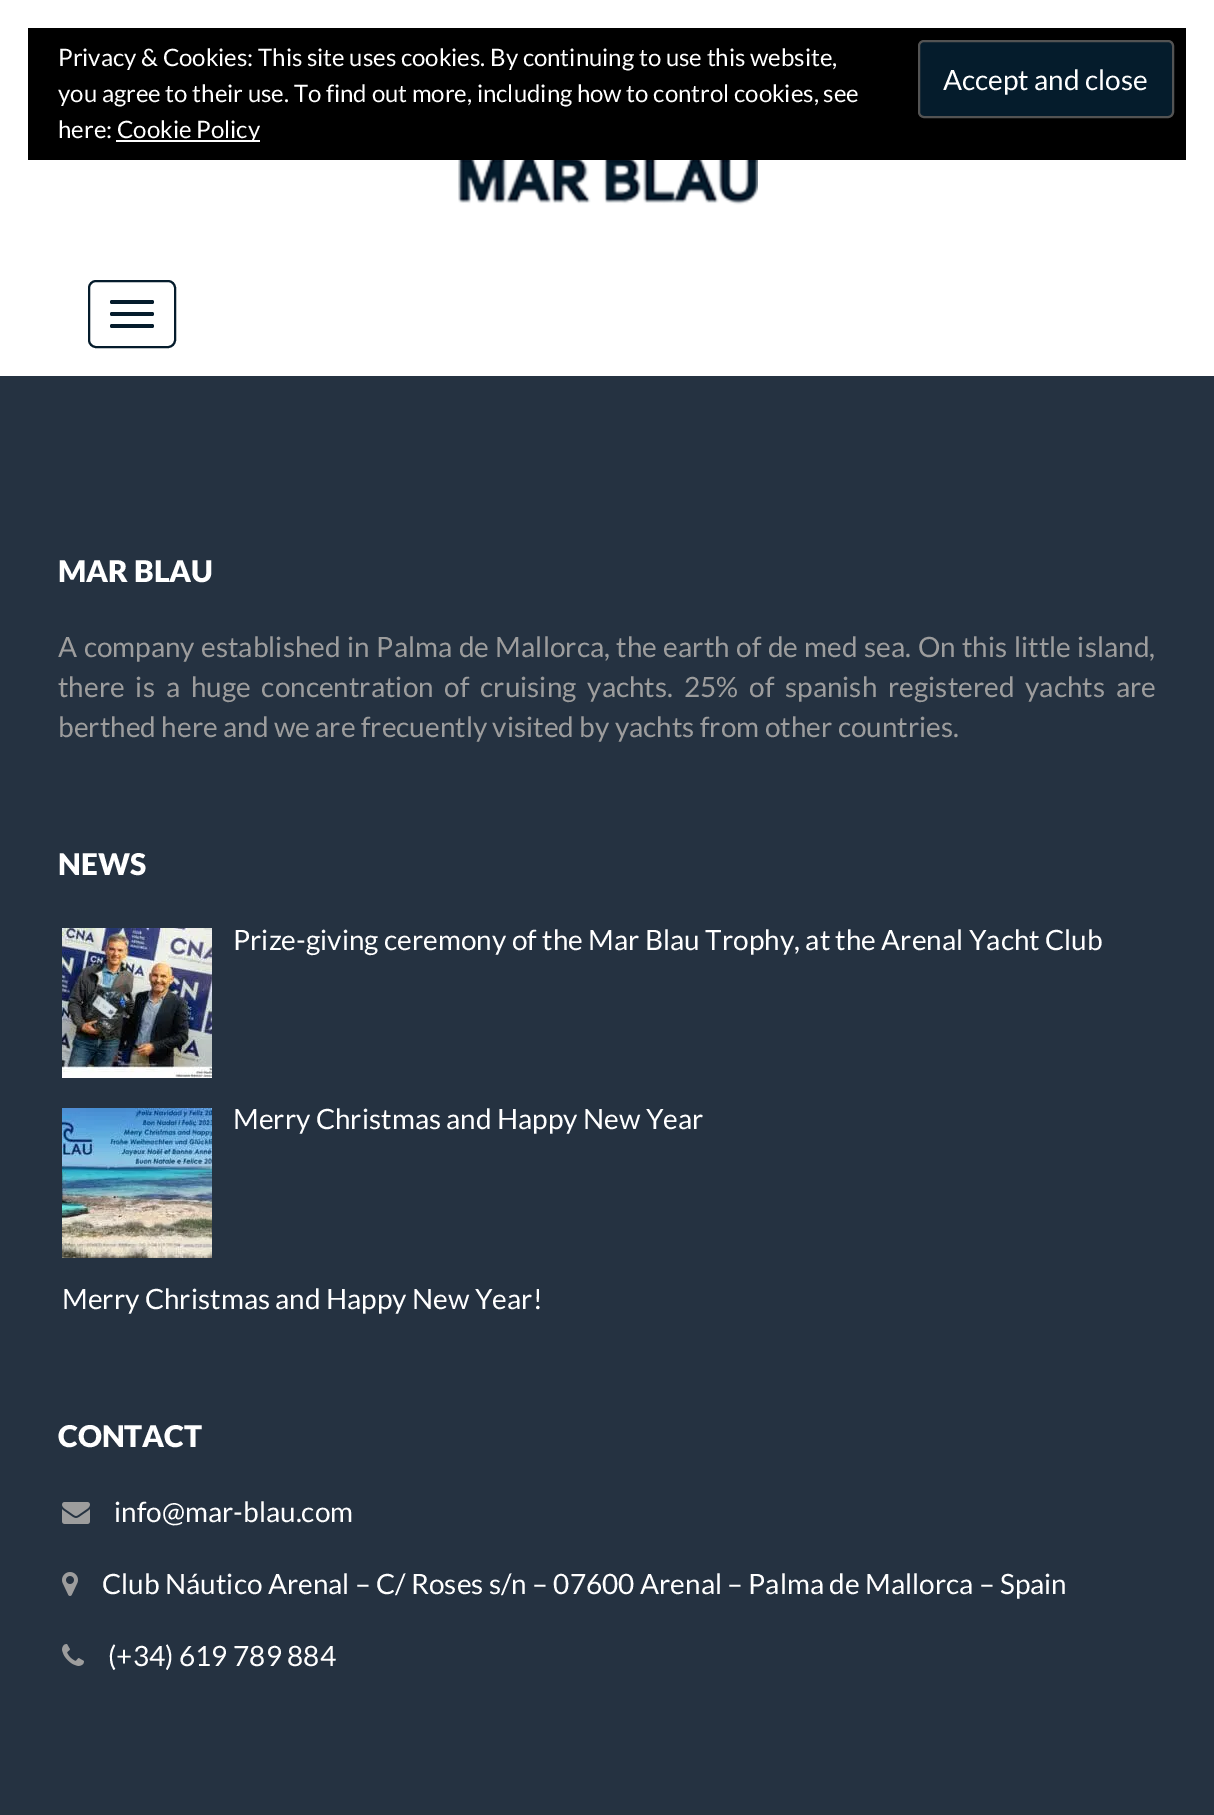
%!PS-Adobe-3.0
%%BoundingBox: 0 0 1214 1815
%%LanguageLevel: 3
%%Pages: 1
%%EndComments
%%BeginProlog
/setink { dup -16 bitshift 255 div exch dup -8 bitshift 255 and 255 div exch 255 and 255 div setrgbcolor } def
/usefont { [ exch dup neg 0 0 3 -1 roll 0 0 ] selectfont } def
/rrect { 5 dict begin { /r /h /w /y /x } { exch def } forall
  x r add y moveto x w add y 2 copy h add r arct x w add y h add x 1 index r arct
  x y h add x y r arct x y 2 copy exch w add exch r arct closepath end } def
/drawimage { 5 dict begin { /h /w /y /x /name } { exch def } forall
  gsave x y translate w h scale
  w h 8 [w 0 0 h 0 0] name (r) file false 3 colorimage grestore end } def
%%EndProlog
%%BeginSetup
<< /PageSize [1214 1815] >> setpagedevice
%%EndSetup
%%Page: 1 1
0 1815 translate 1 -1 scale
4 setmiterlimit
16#FFFFFF setink
0 0 1214 1815 rectfill
16#000000 setink
28 28 1158 132 rectfill
/Lato-Regular 24 usefont
16#FFFFFF setink
58 66 moveto (Privacy & Cookies: This site uses cookies. By continuing to use this website,) show
58 102 moveto (you agree to their use. To find out more, including how to control cookies, see) show
16#051C2C setink
919 41 254 76 5 rrect gsave fill grestore
16#535353 setink
2 setlinewidth
stroke
/Lato-Regular 28 usefont
16#FFFFFF setink
943 90 moveto (Accept and close) show
/Lato-Regular 24 usefont
58 138 moveto (here:) show
116 140 144 2 rectfill
117 138 moveto (Cookie Policy) show
(img1.raw) 458 160 300 45 drawimage
16#051C2C setink
89 281 86 66 7 rrect stroke
110 300 44 4 2 rrect fill
110 312 44 4 2 rrect fill
110 324 44 4 2 rrect fill
16#253241 setink
0 376 1214 1439 rectfill
/Lato-Black 30 usefont
16#FFFFFF setink
58 582 moveto (MAR BLAU) show
/Lato-Regular 28 usefont
16#9D9D9D setink
58 657 moveto 1.1 0 32 (A company established in Palma de Mallorca, the earth of de med sea. On this little island,) widthshow
58 697 moveto 5.4 0 32 (there is a huge concentration of cruising yachts. 25% of spanish registered yachts are) widthshow
58 737 moveto (berthed here and we are frecuently visited by yachts from other countries.) show
/Lato-Black 30 usefont
16#FFFFFF setink
58 875 moveto (NEWS) show
(img2.raw) 62 928 150 150 drawimage
/Lato-Regular 28 usefont
233 950 moveto (Prize-giving ceremony of the Mar Blau Trophy, at the Arenal Yacht Club) show
(img3.raw) 62 1108 150 150 drawimage
233 1129 moveto (Merry Christmas and Happy New Year) show
62 1309 moveto (Merry Christmas and Happy New Year!) show
/Lato-Black 30 usefont
58 1447 moveto (CONTACT) show
(img4.raw) 62 1502 28 22 drawimage
/Lato-Regular 28 usefont
114 1522 moveto (info@mar-blau.com) show
(img5.raw) 62 1572 16 24 drawimage
102 1594 moveto (Club Náutico Arenal – C/ Roses s/n – 07600 Arenal – Palma de Mallorca – Spain) show
(img6.raw) 62 1644 22 22 drawimage
108 1666 moveto (\(+34\) 619 789 884) show
showpage
%%EOF
